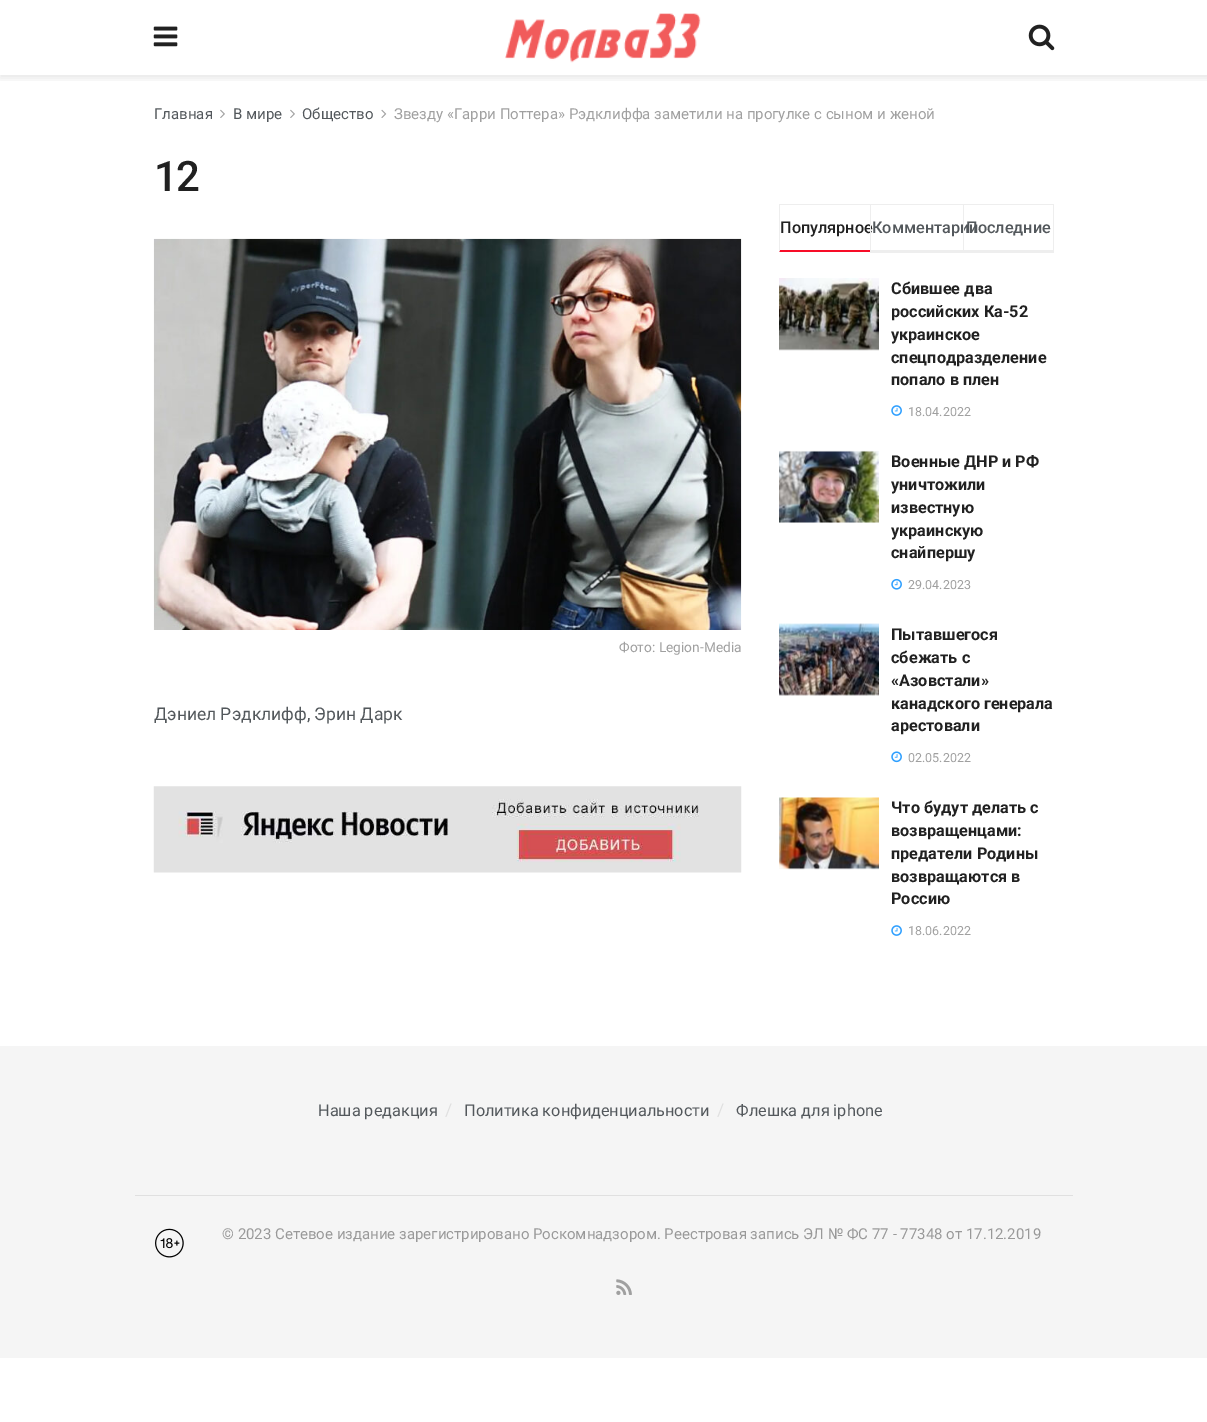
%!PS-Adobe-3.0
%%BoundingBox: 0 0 1207 1422
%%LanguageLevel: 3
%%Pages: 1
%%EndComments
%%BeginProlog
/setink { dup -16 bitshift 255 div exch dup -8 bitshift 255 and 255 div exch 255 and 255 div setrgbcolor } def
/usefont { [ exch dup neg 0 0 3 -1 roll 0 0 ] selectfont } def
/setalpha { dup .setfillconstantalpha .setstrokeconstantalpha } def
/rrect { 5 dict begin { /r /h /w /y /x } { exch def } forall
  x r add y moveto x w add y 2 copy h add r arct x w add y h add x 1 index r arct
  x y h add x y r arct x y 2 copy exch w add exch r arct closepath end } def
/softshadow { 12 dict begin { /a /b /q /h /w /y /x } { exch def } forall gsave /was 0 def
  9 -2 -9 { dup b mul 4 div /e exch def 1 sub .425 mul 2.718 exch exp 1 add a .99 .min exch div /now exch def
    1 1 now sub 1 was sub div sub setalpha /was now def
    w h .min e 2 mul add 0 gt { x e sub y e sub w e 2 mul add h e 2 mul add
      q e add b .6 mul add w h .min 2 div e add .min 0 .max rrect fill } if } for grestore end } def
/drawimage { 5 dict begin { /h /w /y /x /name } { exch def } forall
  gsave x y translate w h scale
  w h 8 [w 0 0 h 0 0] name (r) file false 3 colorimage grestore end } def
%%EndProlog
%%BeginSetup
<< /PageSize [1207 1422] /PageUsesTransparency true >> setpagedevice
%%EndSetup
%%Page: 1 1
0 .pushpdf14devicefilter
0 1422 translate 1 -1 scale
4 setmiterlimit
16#FFFFFF setink
0 0 1207 1422 rectfill
gsave
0 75 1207 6 rectclip
16#000000 setink
0 3 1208 75 0 4 0.1 softshadow
grestore
(img1.raw) 153 26 25 21 drawimage
(img2.raw) 505 13 196 50 drawimage
(img3.raw) 1028 24 27 27 drawimage
/Roboto-Regular 15 usefont
16#53585C setink
154 119 moveto (Главная) show
(img4.raw) 220 109 5 9 drawimage
233 119 moveto (В мире) show
(img4.raw) 290 109 5 9 drawimage
302 119 moveto (Общество) show
(img5.raw) 381 109 6 9 drawimage
16#A0A0A0 setink
394 119 moveto (Звезду «Гарри Поттера» Рэдклиффа заметили на прогулке с сыном и женой) show
/Roboto-Medium 42 usefont
16#212121 setink
154 191 moveto -2 0 (12) ashow
(img6.raw) 153 238 589 392 drawimage
/Roboto-Regular 13.75 usefont
16#A0A0A0 setink
619 652 moveto (Фото: Legion-Media) show
/Roboto-Regular 17.5 usefont
16#53585C setink
154 720 moveto (Дэниел Рэдклифф, Эрин Дарк) show
(img7.raw) 153 786 589 87 drawimage
16#EEEEEE setink
779 204 275 1 rectfill
16#F70D28 setink
870 252 moveto 779 252 lineto 780 250 lineto 870 250 lineto closepath fill
16#EEEEEE setink
779 252 moveto 779 204 lineto 780 205 lineto 780 250 lineto closepath fill
/Roboto-Medium 16.25 usefont
16#212121 setink
780 233 moveto (Популярное) show
16#EEEEEE setink
870 250 93 3 rectfill
870 204 1 49 rectfill
16#53585C setink
872 233 moveto (Комментарии) show
[
    [1053 204 1 49 16#EEEEEE]
    [963 250 91 3 16#EEEEEE]
    [963 204 1 49 16#EEEEEE]
] { aload pop setink rectfill } forall
16#53585C setink
966 233 moveto (Последние) show
16#F7F7F7 setink
779 349 100 1 rectfill
(img8.raw) 779 278 100 73 drawimage
/Roboto-Bold 16.25 usefont
16#212121 setink
[
    [(Сбившее два) 891 294]
    [(российских Ка-52) 891 317]
    [(украинское) 891 340]
    [(спецподразделение) 891 363]
    [(попало в плен) 891 385]
] { aload pop moveto show } forall
(img9.raw) 891 405 11 11 drawimage
/Roboto-Regular 12.5 usefont
16#A0A0A0 setink
908 416 moveto (18.04.2022) show
16#F7F7F7 setink
779 451 100 72 rectfill
(img10.raw) 779 450 100 73 drawimage
/Roboto-Bold 16.25 usefont
16#212121 setink
[
    [(Военные ДНР и РФ) 891 467]
    [(уничтожили) 891 490]
    [(известную) 891 513]
    [(украинскую) 891 536]
    [(снайпершу) 891 558]
] { aload pop moveto show } forall
(img11.raw) 891 578 11 12 drawimage
/Roboto-Regular 12.5 usefont
16#A0A0A0 setink
908 589 moveto (29.04.2023) show
(img12.raw) 779 623 100 73 drawimage
/Roboto-Bold 16.25 usefont
16#212121 setink
[
    [(Пытавшегося) 891 640]
    [(сбежать с) 891 663]
    [(«Азовстали») 891 686]
    [(канадского генерала) 891 709]
    [(арестовали) 891 731]
] { aload pop moveto show } forall
(img13.raw) 891 751 11 12 drawimage
/Roboto-Regular 12.5 usefont
16#A0A0A0 setink
908 762 moveto (02.05.2022) show
16#F7F7F7 setink
779 868 100 1 rectfill
(img14.raw) 779 797 100 73 drawimage
/Roboto-Bold 16.25 usefont
16#212121 setink
[
    [(Что будут делать с) 891 813]
    [(возвращенцами:) 891 836]
    [(предатели Родины) 891 859]
    [(возвращаются в) 891 882]
    [(Россию) 891 904]
] { aload pop moveto show } forall
(img9.raw) 891 925 11 11 drawimage
/Roboto-Regular 12.5 usefont
16#A0A0A0 setink
908 935 moveto (18.06.2022) show
16#F5F5F5 setink
0 1046 1207 312 rectfill
/Roboto-Regular 16.25 usefont
16#53585C setink
318 1116 moveto (Наша редакция) show
/Roboto-Regular 17.5 usefont
16#E0E0E0 setink
445 1116 moveto (/) show
/Roboto-Regular 16.25 usefont
16#53585C setink
464 1116 moveto (Политика конфиденциальности) show
/Roboto-Regular 17.5 usefont
16#E0E0E0 setink
717 1116 moveto (/) show
/Roboto-Regular 16.25 usefont
16#53585C setink
736 1116 moveto (Флешка для iphone) show
16#E0E0E0 setink
135 1195 938 1 rectfill
(img15.raw) 155 1228 29 30 drawimage
/Roboto-Regular 15 usefont
16#999999 setink
222 1239 moveto (© 2023 Сетевое издание зарегистрировано Роскомнадзором. Реестровая запись ЭЛ № ФС 77 - 77348 от 17.12.2019) show
(img16.raw) 616 1279 16 16 drawimage
.poppdf14devicefilter showpage
%%EOF
